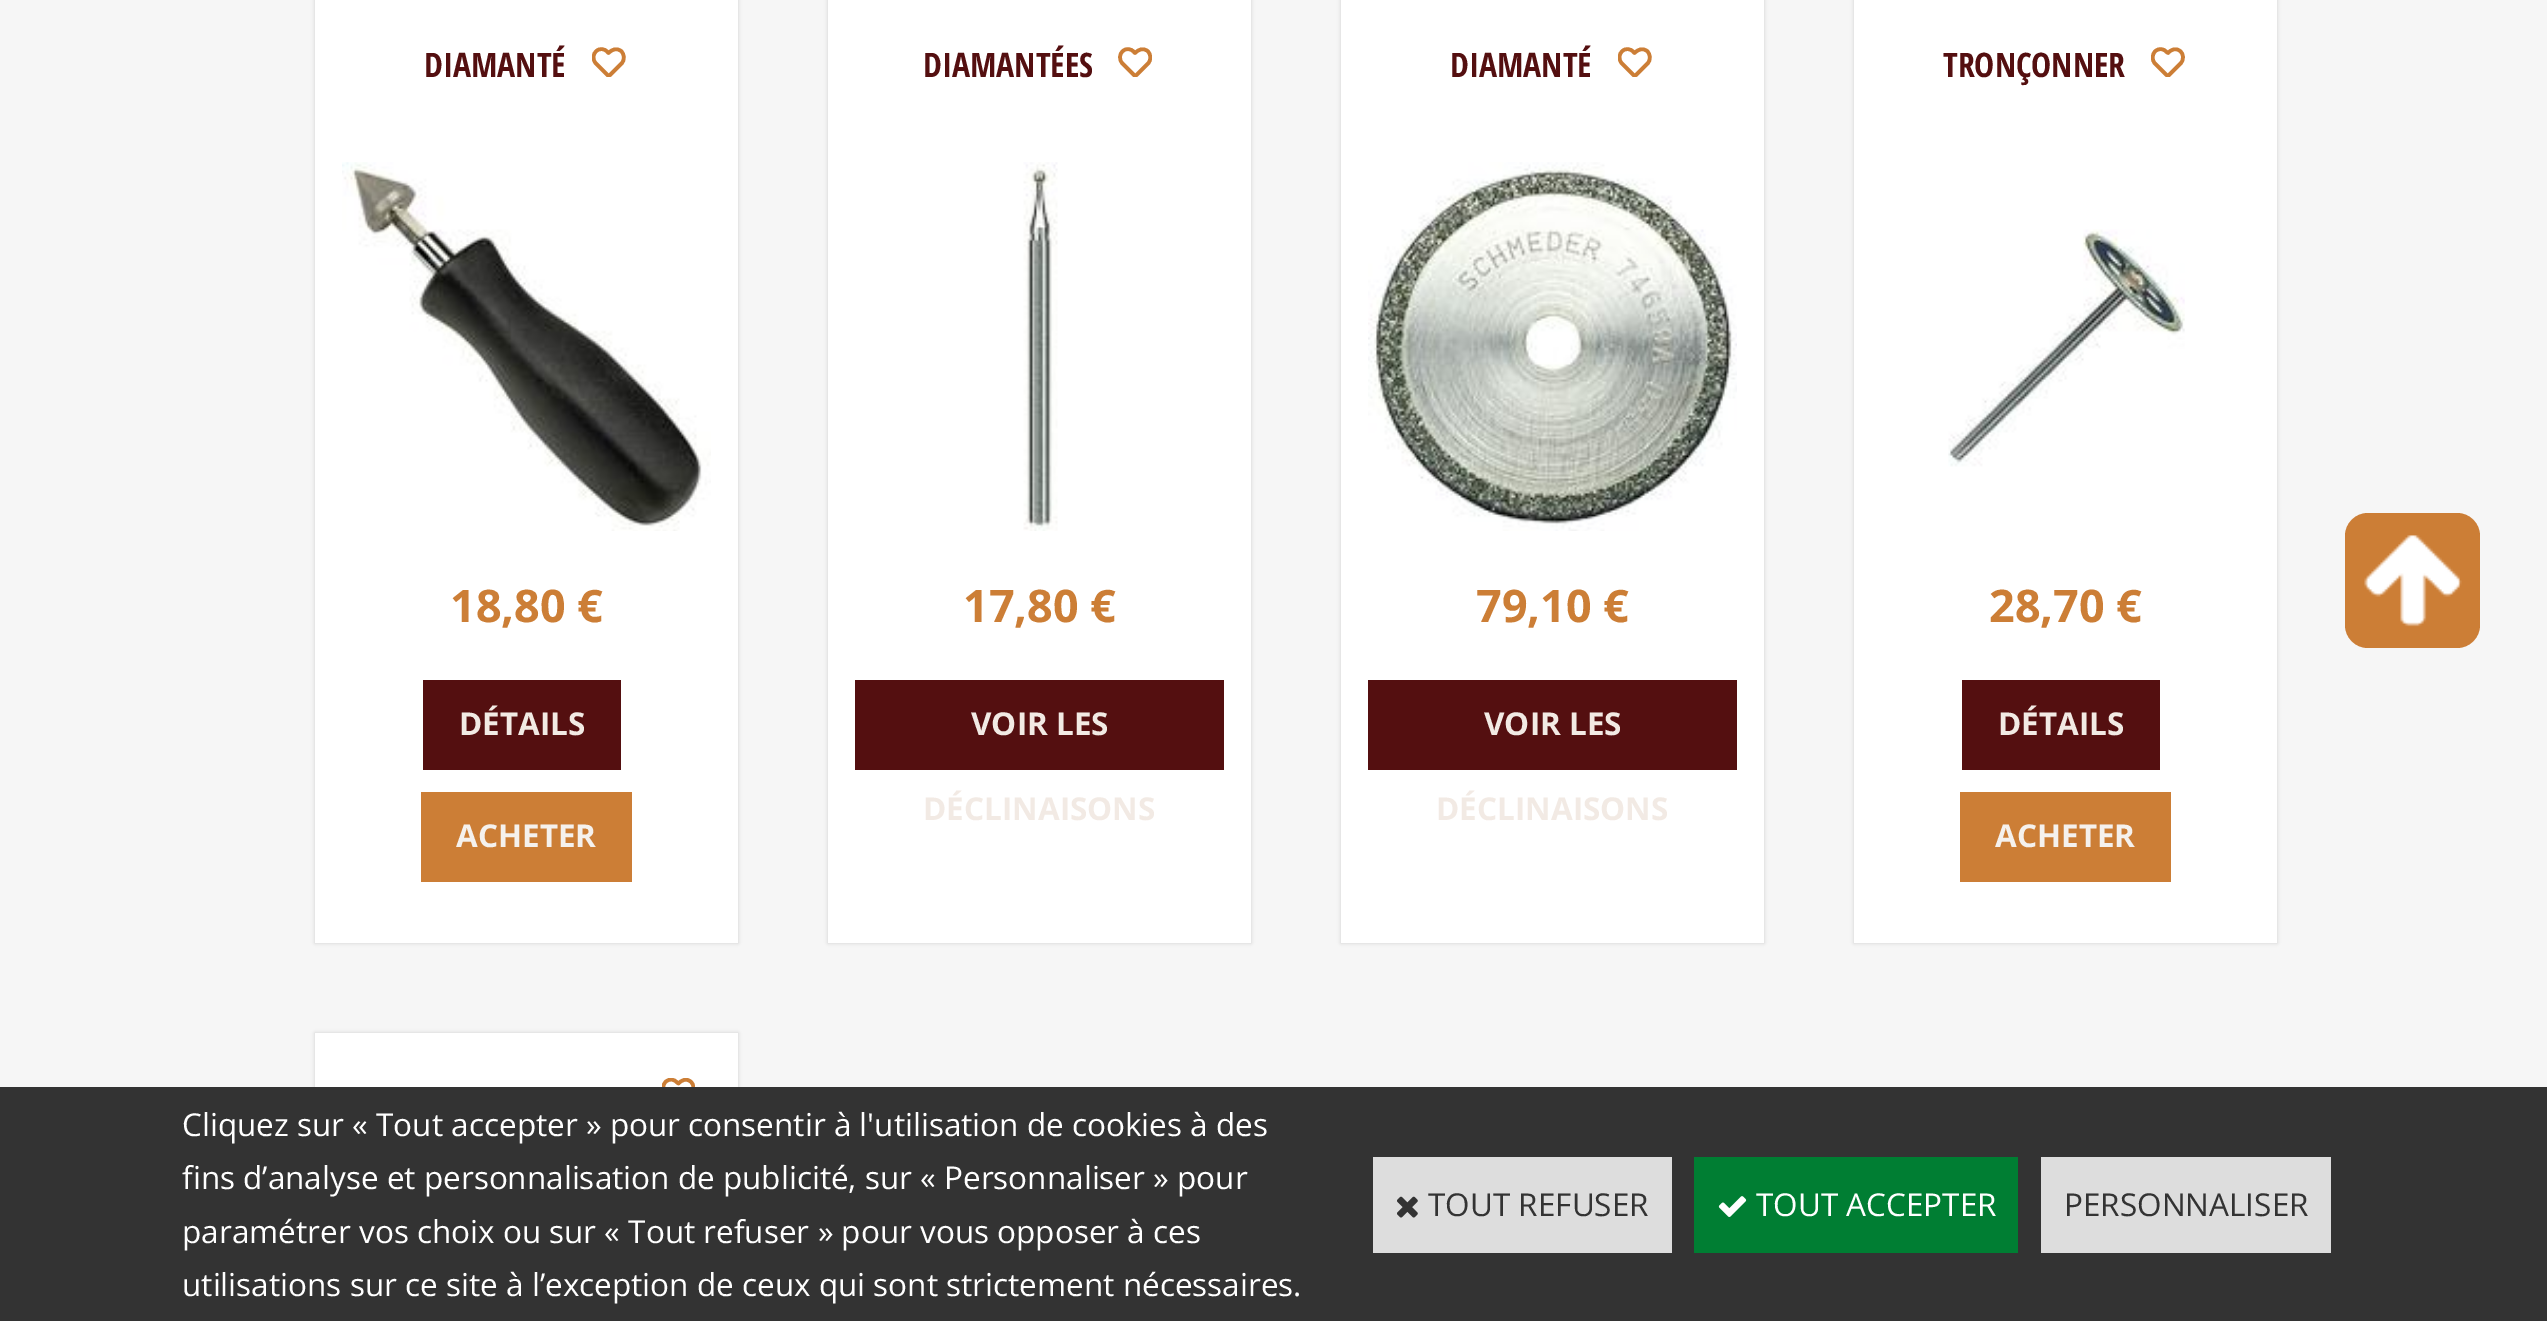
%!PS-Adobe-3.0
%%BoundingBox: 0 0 2547 1321
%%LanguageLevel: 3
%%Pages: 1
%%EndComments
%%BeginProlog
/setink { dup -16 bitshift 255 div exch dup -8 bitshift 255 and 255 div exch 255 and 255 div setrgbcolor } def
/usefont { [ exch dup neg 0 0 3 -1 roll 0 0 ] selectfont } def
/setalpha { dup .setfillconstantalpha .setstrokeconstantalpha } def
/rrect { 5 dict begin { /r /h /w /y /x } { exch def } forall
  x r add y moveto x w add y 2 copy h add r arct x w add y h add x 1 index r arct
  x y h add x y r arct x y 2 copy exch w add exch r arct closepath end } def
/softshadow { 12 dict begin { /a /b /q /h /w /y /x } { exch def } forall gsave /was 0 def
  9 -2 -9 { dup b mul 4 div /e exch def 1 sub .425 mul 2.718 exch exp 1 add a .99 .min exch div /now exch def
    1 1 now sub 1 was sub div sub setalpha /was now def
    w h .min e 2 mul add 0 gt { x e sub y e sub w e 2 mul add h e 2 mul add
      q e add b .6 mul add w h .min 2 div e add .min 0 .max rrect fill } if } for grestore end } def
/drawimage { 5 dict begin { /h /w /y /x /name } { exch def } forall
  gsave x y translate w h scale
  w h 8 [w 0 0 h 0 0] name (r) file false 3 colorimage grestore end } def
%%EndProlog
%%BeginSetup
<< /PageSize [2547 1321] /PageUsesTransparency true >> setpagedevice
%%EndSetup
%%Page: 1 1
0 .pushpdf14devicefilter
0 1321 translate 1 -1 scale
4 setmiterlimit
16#F6F6F6 setink
0 0 2547 1321 rectfill
16#CCCCCC setink
315 -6 423 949 0 2 1 softshadow
16#FFFFFF setink
315 0 423 943 rectfill
/OpenSansCondensed-Bold 33.75 usefont
16#540F10 setink
424 77 moveto (DIAMANTÉ) show
gsave
592 47 34 30 rectclip
16#CC7E36 setink
3.6 setlinewidth
1 setlinecap
1 setlinejoin
621 51 moveto 616.5 47.5 612 49.5 608.5 53 curveto 607.5 52 lineto 604.5 48.5 599.5 48 596.5 51 curveto 592.5 54 592.5 60 596 63.5 curveto 607.5 75 lineto 608 76 609 76 610 75 curveto 621.5 63.5 lineto 625 60 624.5 54 621 51 curveto closepath stroke
grestore
(img1.raw) 342 162 369 369 drawimage
/OpenSans-Bold 45 usefont
16#CC7E36 setink
450 622 moveto (18,80 €) show
16#540F10 setink
423 680 198 90 rectfill
/OpenSans-Bold 31.5 usefont
16#F2EAE4 setink
459 735 moveto (DÉTAILS) show
16#CC7E36 setink
421 792 211 90 rectfill
16#F5F1ED setink
456 847 moveto (ACHETER) show
16#CCCCCC setink
828 -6 423 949 0 2 1 softshadow
16#FFFFFF setink
828 0 423 943 rectfill
/OpenSansCondensed-Bold 33.75 usefont
16#540F10 setink
923 77 moveto (DIAMANTÉES) show
gsave
1118 47 34 30 rectclip
16#CC7E36 setink
3.6 setlinewidth
1 setlinecap
1 setlinejoin
1147.5 51 moveto 1143 47.5 1138.5 49.5 1135 53 curveto 1134 52 lineto 1131 48.5 1126 48 1123 51 curveto 1119 54 1119 60 1122.5 63.5 curveto 1134 75 lineto 1134.5 76 1135.5 76 1136.5 75 curveto 1148 63.5 lineto 1151.5 60 1151 54 1147.5 51 curveto closepath stroke
grestore
(img2.raw) 1023 162 35 369 drawimage
/OpenSans-Bold 45 usefont
16#CC7E36 setink
963 622 moveto (17,80 €) show
16#540F10 setink
855 680 369 90 rectfill
/OpenSans-Bold 31.5 usefont
16#F2EAE4 setink
971 735 moveto (VOIR LES) show
923 820 moveto (DÉCLINAISONS) show
16#CCCCCC setink
1341 -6 423 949 0 2 1 softshadow
16#FFFFFF setink
1341 0 423 943 rectfill
/OpenSansCondensed-Bold 33.75 usefont
16#540F10 setink
1450 77 moveto (DIAMANTÉ) show
gsave
1618 47 34 30 rectclip
16#CC7E36 setink
3.6 setlinewidth
1 setlinecap
1 setlinejoin
1647 51 moveto 1642.5 47.5 1638 49.5 1634.5 53 curveto 1633.5 52 lineto 1630.5 48.5 1625.5 48 1622.5 51 curveto 1618.5 54 1618.5 60 1622 63.5 curveto 1633.5 75 lineto 1634 76 1635 76 1636 75 curveto 1647.5 63.5 lineto 1651 60 1650.5 54 1647 51 curveto closepath stroke
grestore
(img3.raw) 1368 162 369 369 drawimage
/OpenSans-Bold 45 usefont
16#CC7E36 setink
1476 622 moveto (79,10 €) show
16#540F10 setink
1368 680 369 90 rectfill
/OpenSans-Bold 31.5 usefont
16#F2EAE4 setink
1484 735 moveto (VOIR LES) show
1436 820 moveto (DÉCLINAISONS) show
16#CCCCCC setink
1854 -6 423 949 0 2 1 softshadow
16#FFFFFF setink
1854 0 423 943 rectfill
/OpenSansCondensed-Bold 33.75 usefont
16#540F10 setink
1943 77 moveto (TRONÇONNER) show
gsave
2151 47 34 30 rectclip
16#CC7E36 setink
3.6 setlinewidth
1 setlinecap
1 setlinejoin
2180 51 moveto 2176 47.5 2171 49.5 2168 53 curveto 2166.5 52 lineto 2163.5 48.5 2159 48 2155.5 51 curveto 2152 54 2151.5 60 2155 63.5 curveto 2166.5 75 lineto 2167.5 76 2168.5 76 2169 75 curveto 2180.5 63.5 lineto 2184 60 2184 54 2180 51 curveto closepath stroke
grestore
(img4.raw) 1948 229 237 238 drawimage
/OpenSans-Bold 45 usefont
16#CC7E36 setink
1989 622 moveto (28,70 €) show
16#540F10 setink
1962 680 198 90 rectfill
/OpenSans-Bold 31.5 usefont
16#F2EAE4 setink
1998 735 moveto (DÉTAILS) show
16#CC7E36 setink
1960 792 211 90 rectfill
16#F5F1ED setink
1995 847 moveto (ACHETER) show
16#CCCCCC setink
315 1033 423 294 0 2 1 softshadow
16#FFFFFF setink
315 1033 423 54 rectfill
gsave
662 1078 33 31 rectclip
16#CC7E36 setink
3.6 setlinewidth
1 setlinecap
1 setlinejoin
690.5 1081.5 moveto 686.5 1078 681.5 1080 678.5 1083.5 curveto 677 1082.5 lineto 674 1079 669.5 1078.5 666 1081.5 curveto 662.5 1084.5 662 1090.5 665.5 1094 curveto 677 1105.5 lineto 678 1106.5 679 1106.5 679.5 1105.5 curveto 691 1094 lineto 694.5 1090.5 694.5 1084.5 690.5 1081.5 curveto closepath stroke
grestore
16#CC7E36 setink
2345 513 135 135 23 rrect fill
(img5.raw) 2364 535 98 92 drawimage
16#333333 setink
0 1087 2547 234 rectfill
/OpenSans-Regular 31.5 usefont
16#FFFFFF setink
[
    [(Cliquez sur « Tout accepter » pour consentir à l'utilisation de cookies à des) 182 1136]
    [(fins d’analyse et personnalisation de publicité, sur « Personnaliser » pour) 182 1189]
    [(paramétrer vos choix ou sur « Tout refuser » pour vous opposer à ces) 182 1243]
    [(utilisations sur ce site à l’exception de ceux qui sont strictement nécessaires.) 182 1296]
] { aload pop moveto show } forall
16#DDDDDD setink
1373 1157 299 96 rectfill
(img6.raw) 1397 1196 21 22 drawimage
16#333333 setink
1428 1216 moveto (TOUT REFUSER) show
16#007E33 setink
1694 1157 324 96 rectfill
(img7.raw) 1718 1196 29 21 drawimage
16#FFFFFF setink
1756 1216 moveto (TOUT ACCEPTER) show
16#DDDDDD setink
2041 1157 290 96 rectfill
16#333333 setink
2064 1216 moveto (PERSONNALISER) show
.poppdf14devicefilter showpage
%%EOF
